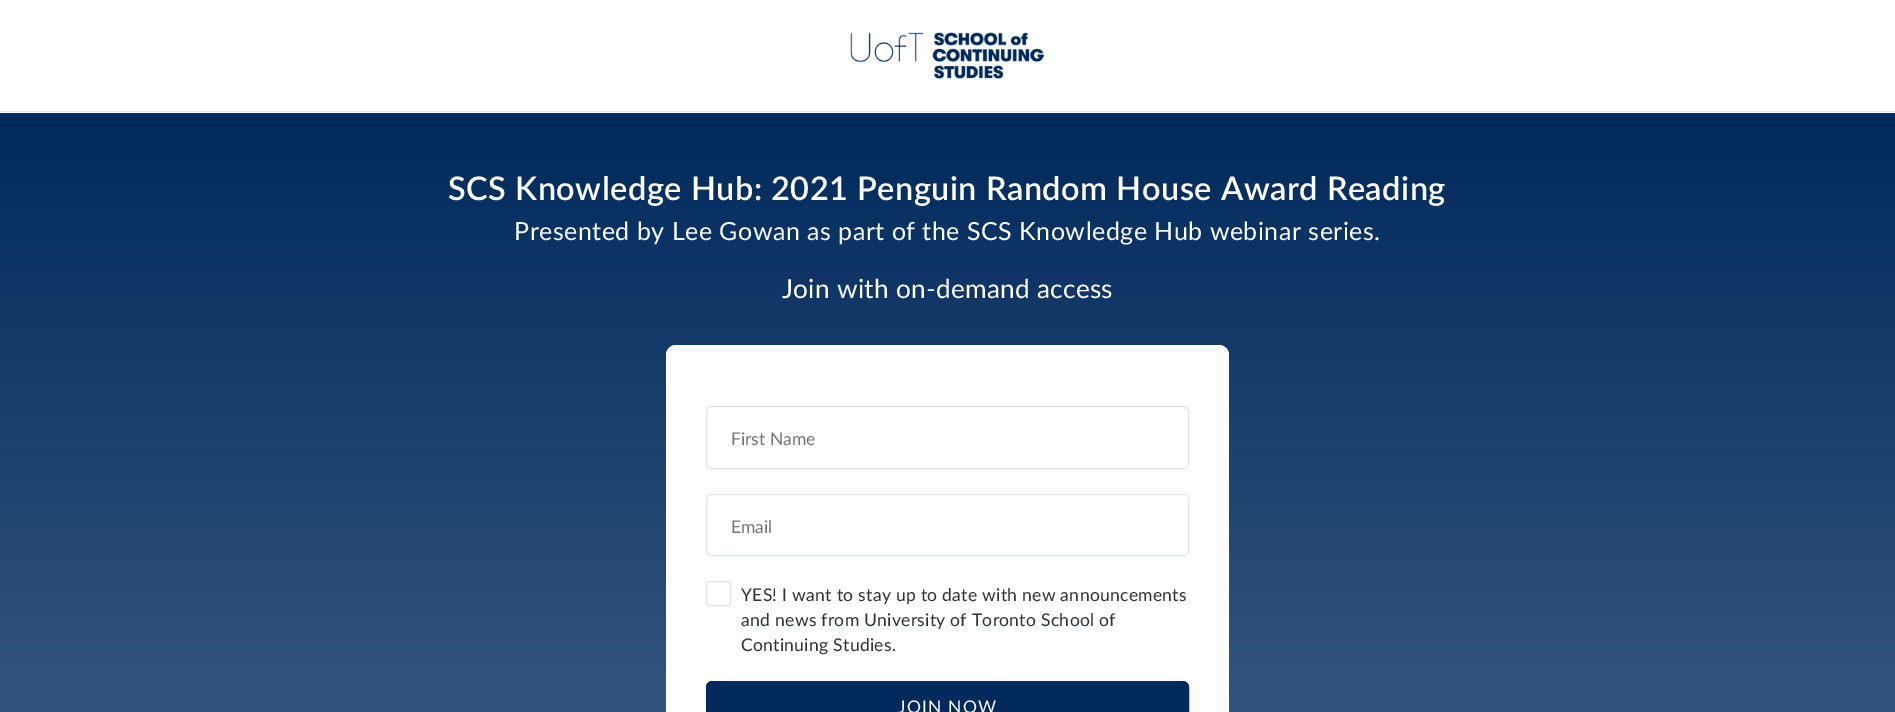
%!PS-Adobe-3.0
%%BoundingBox: 0 0 1895 712
%%LanguageLevel: 3
%%Pages: 1
%%EndComments
%%BeginProlog
/setink { dup -16 bitshift 255 div exch dup -8 bitshift 255 and 255 div exch 255 and 255 div setrgbcolor } def
/usefont { [ exch dup neg 0 0 3 -1 roll 0 0 ] selectfont } def
/rrect { 5 dict begin { /r /h /w /y /x } { exch def } forall
  x r add y moveto x w add y 2 copy h add r arct x w add y h add x 1 index r arct
  x y h add x y r arct x y 2 copy exch w add exch r arct closepath end } def
/drawimage { 5 dict begin { /h /w /y /x /name } { exch def } forall
  gsave x y translate w h scale
  w h 8 [w 0 0 h 0 0] name (r) file false 3 colorimage grestore end } def
%%EndProlog
%%BeginSetup
<< /PageSize [1895 712] >> setpagedevice
%%EndSetup
%%Page: 1 1
0 712 translate 1 -1 scale
4 setmiterlimit
16#FFFFFF setink
0 0 1895 712 rectfill
16#E2E2E2 setink
0 111 1895 1 rectfill
(img1.raw) 850 32 195 47 drawimage
gsave 0 113 moveto 1895 113 lineto 1895 712 lineto 0 712 lineto closepath clip newpath
<< /ShadingType 2 /ColorSpace /DeviceRGB /Coords [948 112 948 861] /Extend [true true] /Function << /FunctionType 2 /Domain [0 1] /C0 [0 0.165 0.361] /C1 [0.251 0.373 0.522] /N 1 >> >> shfill grestore
/Lato-SemiBold 32.5 usefont
16#FFFFFF setink
448 200 moveto 0.5 0 (SCS Knowledge Hub: 2021 Penguin Random House Award Reading) ashow
/Lato-Regular 25 usefont
514 240 moveto 0.5 0 (Presented by Lee Gowan as part of the SCS Knowledge Hub webinar series.) ashow
/Lato-Regular 26.25 usefont
782 298 moveto 0.25 0 (Join with on-demand access) ashow
666 345 563 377 10 rrect fill
16#DEE4E8 setink
706.5 406.5 482 62 4.5 rrect stroke
16#FFFFFF setink
708 408 480 60 4 rrect fill
/Lato-Regular 17.5 usefont
16#757575 setink
731 445 moveto (First Name) show
16#DEE4E8 setink
706.5 494.5 482 61 4.5 rrect stroke
16#FFFFFF setink
708 495 480 60 4 rrect fill
16#757575 setink
731 533 moveto (Email) show
16#DEE4E8 setink
706.5 581.5 24 24 2 rrect stroke
16#2C3336 setink
741 601 moveto 0.3 0 (YES! I want to stay up to date with new announcements) ashow
741 626 moveto 0.3 0 (and news from University of Toronto School of) ashow
741 651 moveto 0.3 0 (Continuing Studies.) ashow
16#002A5C setink
706.5 681.5 482 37 5.5 rrect gsave fill grestore
stroke
16#FFFFFF setink
898 713 moveto 1.25 0 (JOIN NOW) ashow
showpage
%%EOF
